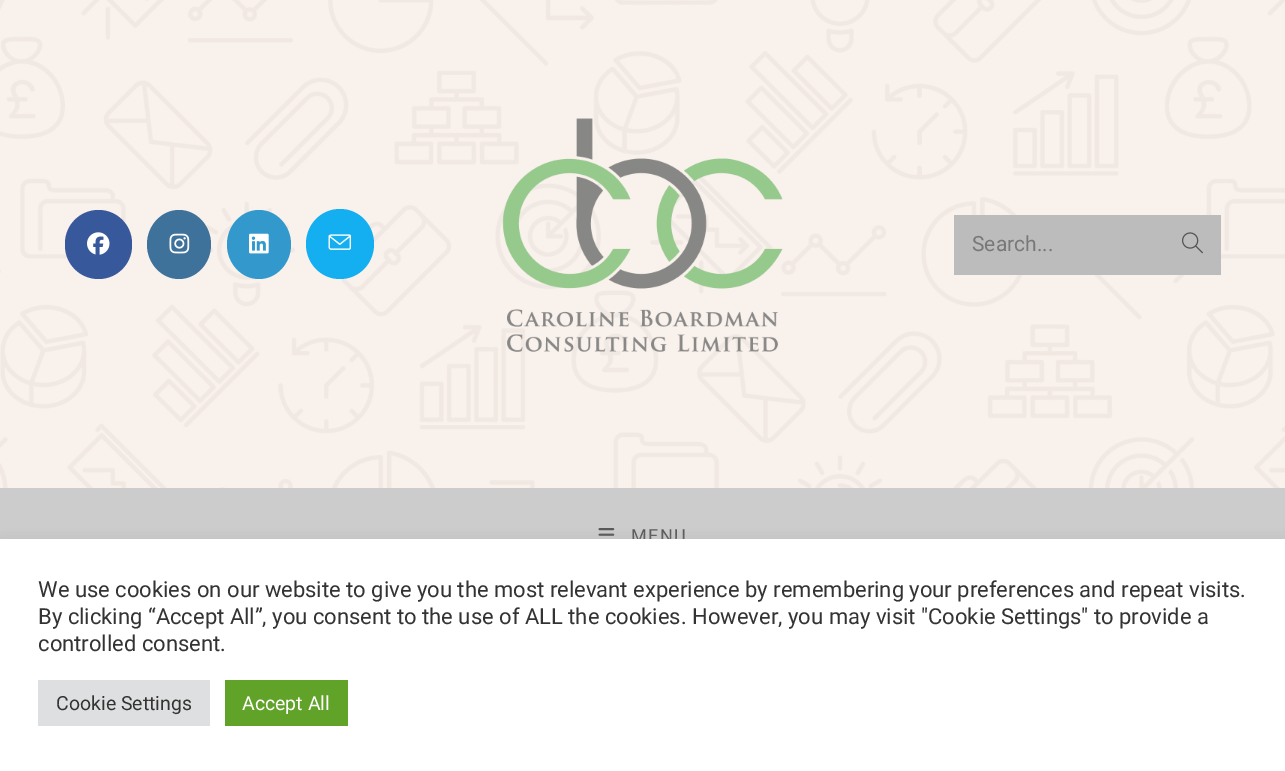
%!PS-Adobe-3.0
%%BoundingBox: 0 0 1285 771
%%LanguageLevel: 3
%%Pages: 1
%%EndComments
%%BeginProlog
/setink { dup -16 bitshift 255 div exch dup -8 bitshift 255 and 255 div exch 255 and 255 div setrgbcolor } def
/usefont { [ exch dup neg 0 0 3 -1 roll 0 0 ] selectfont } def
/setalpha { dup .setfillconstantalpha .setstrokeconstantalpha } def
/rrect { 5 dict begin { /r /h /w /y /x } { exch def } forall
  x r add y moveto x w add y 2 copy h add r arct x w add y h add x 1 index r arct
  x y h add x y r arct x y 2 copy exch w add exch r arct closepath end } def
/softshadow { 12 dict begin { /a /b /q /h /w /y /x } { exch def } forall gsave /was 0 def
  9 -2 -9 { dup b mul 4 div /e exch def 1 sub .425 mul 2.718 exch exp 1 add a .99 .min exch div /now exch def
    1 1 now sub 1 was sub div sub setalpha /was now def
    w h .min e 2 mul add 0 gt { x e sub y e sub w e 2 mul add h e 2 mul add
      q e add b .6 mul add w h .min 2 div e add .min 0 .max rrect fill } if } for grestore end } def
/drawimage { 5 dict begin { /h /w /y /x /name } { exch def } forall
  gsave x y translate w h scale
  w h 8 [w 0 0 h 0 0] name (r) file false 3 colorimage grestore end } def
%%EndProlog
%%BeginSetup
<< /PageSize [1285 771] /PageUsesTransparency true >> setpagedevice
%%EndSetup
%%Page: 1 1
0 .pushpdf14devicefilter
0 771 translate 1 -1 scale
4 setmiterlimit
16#FFFFFF setink
0 0 1285 771 rectfill
(img1.raw) 0 0 1285 488 drawimage
0.94 setalpha
16#F9F0EA setink
0 0 1285 488 rectfill
1 setalpha
16#37589B setink
65 210 67 69 33.5 rrect fill
(img2.raw) 87 232 23 23 drawimage
16#3F729B setink
179 210 moveto 196.5 210 211 225.5 211 244.5 curveto 211 263.5 196.5 279 179 279 curveto 161.5 279 147 263.5 147 244.5 curveto 147 225.5 161.5 210 179 210 curveto closepath fill
(img3.raw) 169 233 21 21 drawimage
16#3399CC setink
259 210 moveto 276.5 210 291 225.5 291 244.5 curveto 291 263.5 276.5 279 259 279 curveto 241.5 279 227 263.5 227 244.5 curveto 227 225.5 241.5 210 259 210 curveto closepath fill
(img4.raw) 249 233 20 21 drawimage
16#13AFF0 setink
340 209 moveto 359 209 374 224.5 374 244 curveto 374 263.5 359 279 340 279 curveto 321 279 306 263.5 306 244 curveto 306 224.5 321 209 340 209 curveto closepath fill
(img5.raw) 328 234 24 16 drawimage
(img6.raw) 502 118 281 234 drawimage
16#BCBCBC setink
954 215 267 60 rectfill
/Roboto-Regular 21 usefont
16#787878 setink
972 251 moveto (Search...) show
(img7.raw) 1182 232 21 22 drawimage
16#CCCCCC setink
0 488 1285 51 rectfill
(img8.raw) 598 528 17 8 drawimage
/Roboto-Regular 18 usefont
16#555555 setink
631 542 moveto 1.5 0 (MENU) ashow
16#ACABAB setink
0 537 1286 233 0 7.5 0.3 softshadow
16#FFFFFF setink
0 539 1285 232 rectfill
/Roboto-Regular 22 usefont
16#333333 setink
[
    [(We use cookies on our website to give you the most relevant experience by remembering your preferences and repeat visits.) 38 597]
    [(By clicking “Accept All”, you consent to the use of ALL the cookies. However, you may visit "Cookie Settings" to provide a) 38 624]
    [(controlled consent.) 38 651]
] { aload pop moveto show } forall
16#DEDFE0 setink
38 680 172 46 rectfill
/Roboto-Regular 19.5 usefont
16#333333 setink
56 710 moveto (Cookie Settings) show
16#61A229 setink
225 680 123 46 rectfill
16#FFFFFF setink
242 710 moveto (Accept All) show
.poppdf14devicefilter showpage
%%EOF
